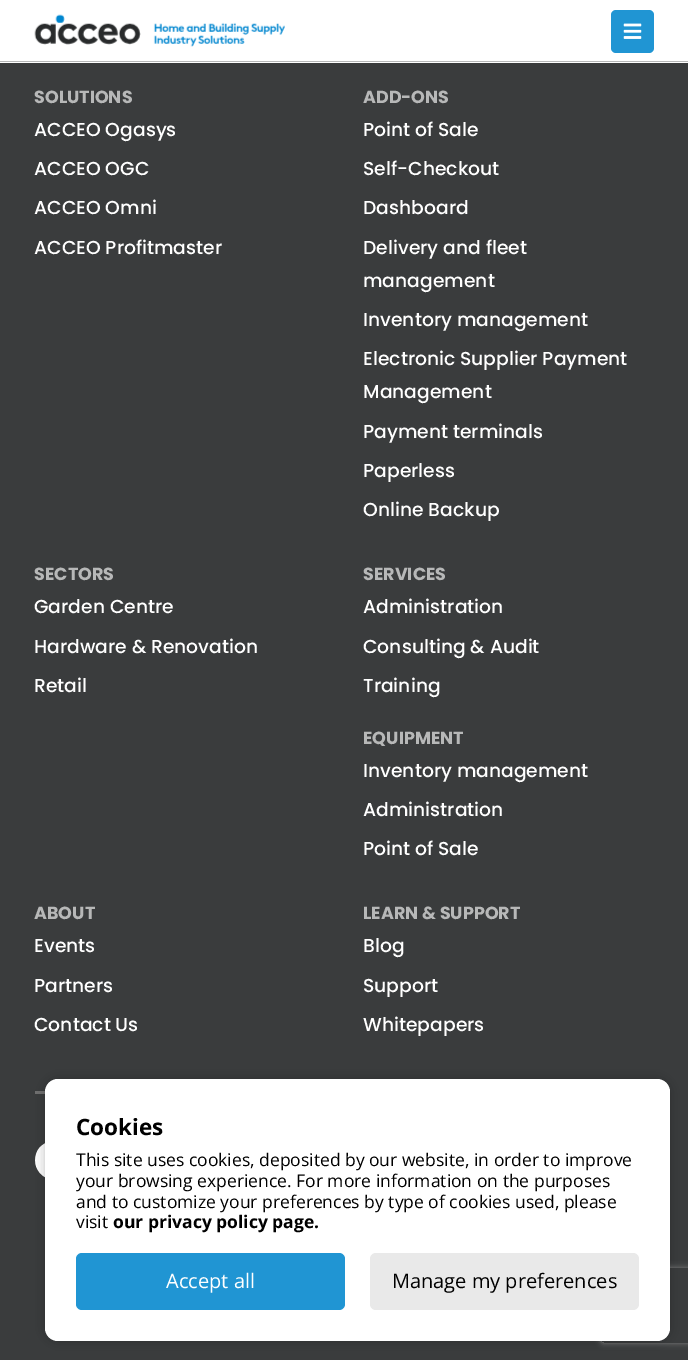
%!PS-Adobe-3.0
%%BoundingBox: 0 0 688 1360
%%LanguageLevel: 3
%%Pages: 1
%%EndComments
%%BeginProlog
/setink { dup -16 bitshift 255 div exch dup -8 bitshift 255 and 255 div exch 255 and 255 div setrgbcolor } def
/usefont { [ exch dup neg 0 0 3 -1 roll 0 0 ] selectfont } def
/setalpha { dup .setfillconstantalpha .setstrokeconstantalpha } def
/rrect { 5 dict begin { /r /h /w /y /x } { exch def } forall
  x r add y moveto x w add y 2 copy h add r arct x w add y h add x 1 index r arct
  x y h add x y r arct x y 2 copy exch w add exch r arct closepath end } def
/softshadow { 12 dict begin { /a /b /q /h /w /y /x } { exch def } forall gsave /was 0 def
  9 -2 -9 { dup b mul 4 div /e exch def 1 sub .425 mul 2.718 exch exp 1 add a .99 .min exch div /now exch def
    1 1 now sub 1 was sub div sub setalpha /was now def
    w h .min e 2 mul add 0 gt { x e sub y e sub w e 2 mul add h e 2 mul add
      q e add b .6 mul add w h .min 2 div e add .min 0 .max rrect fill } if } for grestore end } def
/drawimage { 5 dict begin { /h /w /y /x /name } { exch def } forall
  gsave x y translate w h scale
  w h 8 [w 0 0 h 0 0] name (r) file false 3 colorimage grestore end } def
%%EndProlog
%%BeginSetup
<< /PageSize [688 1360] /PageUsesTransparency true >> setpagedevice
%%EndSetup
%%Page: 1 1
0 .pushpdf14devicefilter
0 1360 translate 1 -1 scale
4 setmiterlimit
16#3A3C3D setink
0 0 688 1360 rectfill
16#FFFFFF setink
0 0 688 63 rectfill
16#B7B8B8 setink
0 61 688 1 rectfill
(img1.raw) 34 14 251 33 drawimage
16#2095D3 setink
611 10 43 43 5 rrect fill
(img2.raw) 623 23 19 16 drawimage
/Poppins-Bold 17.5 usefont
16#B7B8B8 setink
34 103 moveto (SOLUTIONS) show
/Poppins-Medium 18.75 usefont
16#FFFFFF setink
[
    [(ACCEO Ogasys) 34 136]
    [(ACCEO OGC) 34 175]
    [(ACCEO Omni) 34 214]
    [(ACCEO Profitmaster) 34 254]
] { aload pop moveto show } forall
/Poppins-Bold 17.5 usefont
16#B7B8B8 setink
363 103 moveto (ADD-ONS) show
/Poppins-Medium 18.75 usefont
16#FFFFFF setink
[
    [(Point of Sale) 363 136]
    [(Self-Checkout) 363 175]
    [(Dashboard) 363 214]
    [(Delivery and fleet) 363 254]
    [(management) 363 287]
    [(Inventory management) 363 326]
    [(Electronic Supplier Payment) 363 365]
    [(Management) 363 398]
    [(Payment terminals) 363 438]
    [(Paperless) 363 477]
    [(Online Backup) 363 516]
] { aload pop moveto show } forall
/Poppins-Bold 17.5 usefont
16#B7B8B8 setink
34 580 moveto (SECTORS) show
/Poppins-Medium 18.75 usefont
16#FFFFFF setink
[
    [(Garden Centre) 34 613]
    [(Hardware & Renovation) 34 653]
    [(Retail) 34 692]
] { aload pop moveto show } forall
/Poppins-Bold 17.5 usefont
16#B7B8B8 setink
363 580 moveto (SERVICES) show
/Poppins-Medium 18.75 usefont
16#FFFFFF setink
[
    [(Administration) 363 613]
    [(Consulting & Audit) 363 653]
    [(Training) 363 692]
] { aload pop moveto show } forall
/Poppins-Bold 17.5 usefont
16#B7B8B8 setink
363 744 moveto (EQUIPMENT) show
/Poppins-Medium 18.75 usefont
16#FFFFFF setink
[
    [(Inventory management) 363 777]
    [(Administration) 363 816]
    [(Point of Sale) 363 855]
] { aload pop moveto show } forall
/Poppins-Bold 17.5 usefont
16#B7B8B8 setink
34 919 moveto (ABOUT) show
/Poppins-Medium 18.75 usefont
16#FFFFFF setink
[
    [(Events) 34 952]
    [(Partners) 34 992]
    [(Contact Us) 34 1031]
] { aload pop moveto show } forall
/Poppins-Bold 17.5 usefont
16#B7B8B8 setink
363 919 moveto (LEARN & SUPPORT) show
/Poppins-Medium 18.75 usefont
16#FFFFFF setink
[
    [(Blog) 363 952]
    [(Support) 363 992]
    [(Whitepapers) 363 1031]
] { aload pop moveto show } forall
16#707070 setink
35 1091 11 3 rectfill
(img3.raw) 35 1143 10 35 drawimage
16#000000 setink
45 1079 625 262 13 6 0.25 softshadow
gsave
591 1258 moveto 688 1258 lineto 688 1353 lineto 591 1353 lineto closepath 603.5 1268 moveto 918.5 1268 lineto 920 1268 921 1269 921 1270.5 curveto 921 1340.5 lineto 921 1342 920 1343 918.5 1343 curveto 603.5 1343 lineto 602 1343 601 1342 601 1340.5 curveto 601 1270.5 lineto 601 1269 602 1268 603.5 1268 curveto closepath eoclip newpath
16#808080 setink
601 1268 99 75 2.5 3 1 softshadow
grestore
16#FFFFFF setink
45 1079 625 262 13 rrect fill
/OpenSans-Bold 22.5 usefont
16#000000 setink
76 1135 moveto (Cookies) show
/OpenSans-Regular 17.5 usefont
[
    [(This site uses cookies, deposited by our website, in order to improve) 76 1166]
    [(your browsing experience. For more information on the purposes) 76 1187]
    [(and to customize your preferences by type of cookies used, please) 76 1208]
    [(visit) 76 1228]
] { aload pop moveto show } forall
/OpenSans-Bold 17.5 usefont
113 1228 moveto (our privacy policy page.) show
16#2095D3 setink
76 1253 269 57 6 rrect fill
/OpenSans-Regular 20 usefont
16#FFFFFF setink
166 1288 moveto (Accept all) show
16#E9E9E9 setink
370 1253 269 57 6 rrect fill
16#000000 setink
392 1288 moveto (Manage my preferences) show
.poppdf14devicefilter showpage
%%EOF
